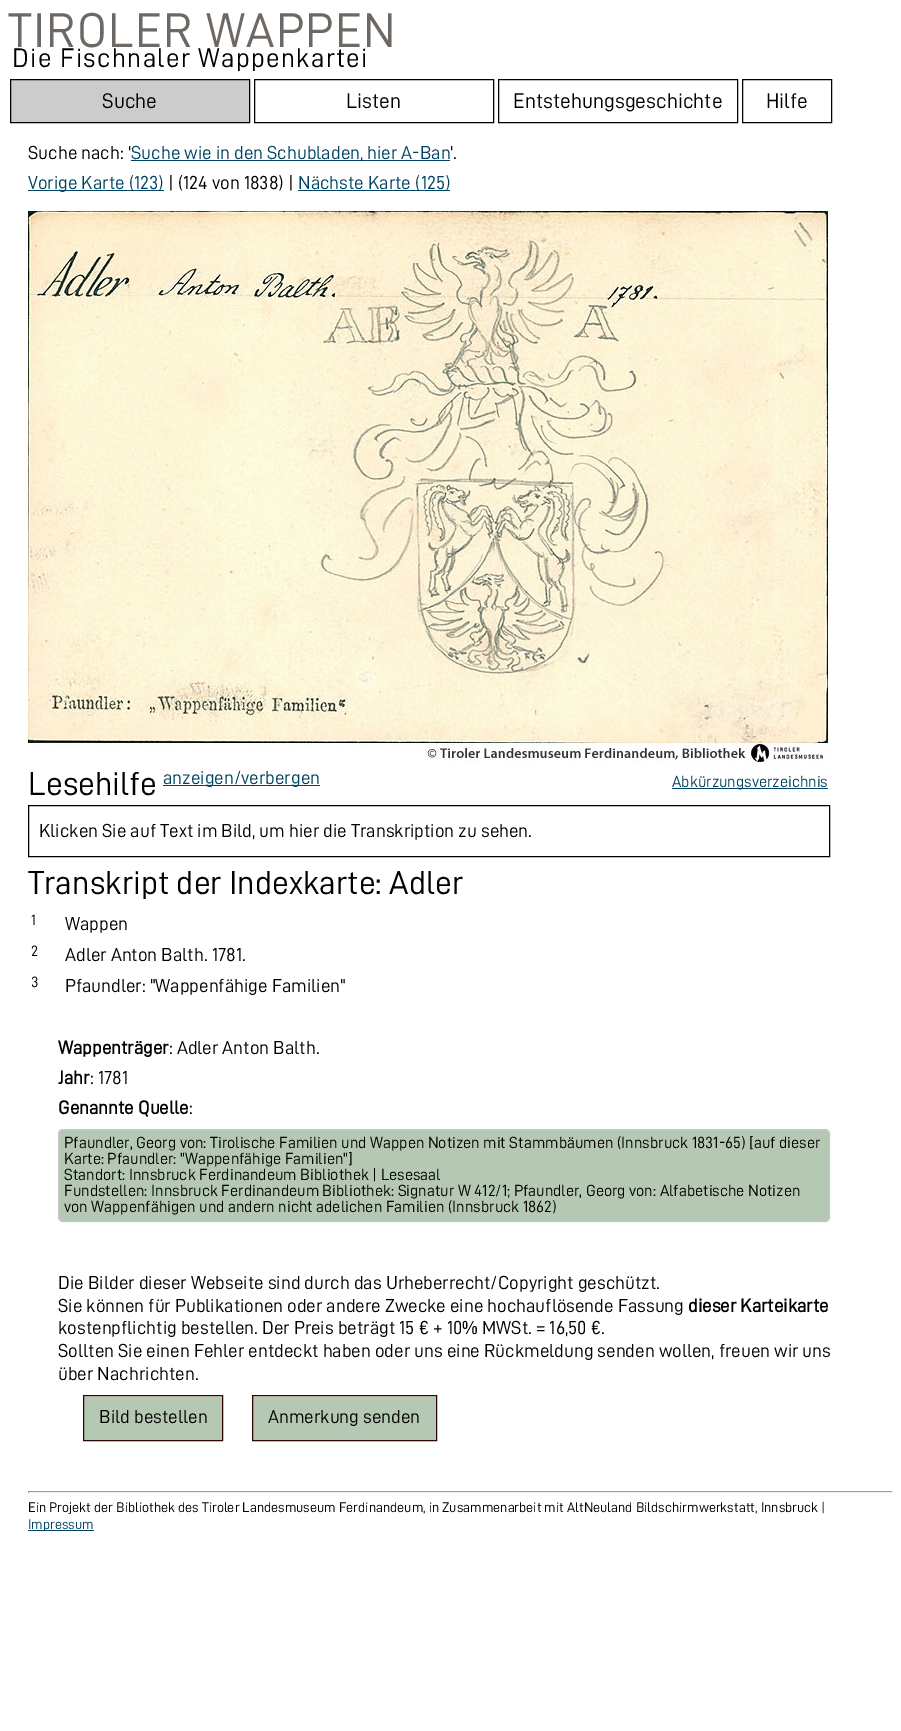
%!PS-Adobe-3.0
%%BoundingBox: 0 0 901 1731
%%LanguageLevel: 3
%%Pages: 1
%%EndComments
%%BeginProlog
/setink { dup -16 bitshift 255 div exch dup -8 bitshift 255 and 255 div exch 255 and 255 div setrgbcolor } def
/usefont { [ exch dup neg 0 0 3 -1 roll 0 0 ] selectfont } def
/rrect { 5 dict begin { /r /h /w /y /x } { exch def } forall
  x r add y moveto x w add y 2 copy h add r arct x w add y h add x 1 index r arct
  x y h add x y r arct x y 2 copy exch w add exch r arct closepath end } def
/drawimage { 5 dict begin { /h /w /y /x /name } { exch def } forall
  gsave x y translate w h scale
  w h 8 [w 0 0 h 0 0] name (r) file false 3 colorimage grestore end } def
%%EndProlog
%%BeginSetup
<< /PageSize [901 1731] >> setpagedevice
%%EndSetup
%%Page: 1 1
0 1731 translate 1 -1 scale
4 setmiterlimit
16#FFFFFF setink
0 0 901 1731 rectfill
/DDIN-Regular 49 usefont
16#6D6863 setink
8 47 moveto 1.3 0 (TIROLER WAPPEN) ashow
/DDIN-Regular 27 usefont
16#000000 setink
12 67 moveto 1.3 0 (Die Fischnaler Wappenkartei) ashow
16#CCCCCC setink
10.5 79.5 moveto 249.5 79.5 lineto 249.5 122.5 lineto 10.5 122.5 lineto closepath gsave fill grestore
16#000000 setink
stroke
/DDIN-Regular 21.25 usefont
102 108 moveto (Suche) show
254.5 79.5 239 43 rectstroke
346 108 moveto (Listen) show
498.5 79.5 239 43 rectstroke
513 108 moveto (Entstehungsgeschichte) show
742.5 79.5 89 43 rectstroke
766 108 moveto (Hilfe) show
/DDIN-Regular 18.9 usefont
28 159 moveto (Suche nach: ') show
16#004461 setink
131 160 319 1 rectfill
131 159 moveto (Suche wie in den Schubladen, hier A-Ban) show
16#000000 setink
450 159 moveto ('.) show
16#004461 setink
28 190 136 1 rectfill
28 189 moveto (Vorige Karte \(123\)) show
16#000000 setink
168 189 moveto (| \(124 von 1838\) |) show
16#004461 setink
298 190 152 1 rectfill
298 189 moveto (Nächste Karte \(125\)) show
(img1.raw) 28 211 800 552 drawimage
/DDIN-Regular 33.5 usefont
16#000000 setink
28 795 moveto (Lesehilfe) show
16#004461 setink
163 785 157 1 rectfill
/DDIN-Regular 18.9 usefont
163 784 moveto (anzeigen/verbergen) show
672 788 156 1 rectfill
/DDIN-Regular 16.2 usefont
672 787 moveto (Abkürzungsverzeichnis) show
16#000000 setink
28.5 805.5 801 51 rectstroke
/DDIN-Regular 18.9 usefont
39 837 moveto (Klicken Sie auf Text im Bild, um hier die Transkription zu sehen.) show
/DDIN-Regular 33.5 usefont
28 894 moveto (Transkript der Indexkarte: Adler) show
/DDIN-Regular 15 usefont
31 925 moveto (1) show
/DDIN-Regular 18.9 usefont
65 930 moveto (Wappen) show
/DDIN-Regular 15 usefont
31 956 moveto (2) show
/DDIN-Regular 18.9 usefont
65 961 moveto (Adler Anton Balth. 1781.) show
/DDIN-Regular 15 usefont
31 987 moveto (3) show
/DDIN-Regular 18.9 usefont
65 992 moveto (Pfaundler: "Wappenfähige Familien") show
/DDIN-Bold 18.9 usefont
58 1054 moveto (Wappenträger) show
/DDIN-Regular 18.9 usefont
169 1054 moveto (: Adler Anton Balth.) show
/DDIN-Bold 18.9 usefont
58 1084 moveto (Jahr) show
/DDIN-Regular 18.9 usefont
90 1084 moveto (: 1781) show
/DDIN-Bold 18.9 usefont
58 1114 moveto (Genannte Quelle) show
/DDIN-Regular 18.9 usefont
189 1114 moveto (:) show
16#B5C8B4 setink
58 1129 772 93 5 rrect fill
16#CCCCCC setink
[1 1] 0 setdash
63 1129.5 moveto 825 1129.5 lineto 827.5 1129.5 829.5 1131.5 829.5 1134 curveto 829.5 1217 lineto 829.5 1219.5 827.5 1221.5 825 1221.5 curveto 63 1221.5 lineto 60.5 1221.5 58.5 1219.5 58.5 1217 curveto 58.5 1134 lineto 58.5 1131.5 60.5 1129.5 63 1129.5 curveto closepath stroke
/DDIN-Regular 16.2 usefont
16#000000 setink
[
    [(Pfaundler, Georg von: Tirolische Familien und Wappen Notizen mit Stammbäumen \(Innsbruck 1831-65\) [auf dieser) 64 1148]
    [(Karte: Pfaundler: "Wappenfähige Familien"]) 64 1164]
    [(Standort: Innsbruck Ferdinandeum Bibliothek | Lesesaal) 64 1180]
    [(Fundstellen: Innsbruck Ferdinandeum Bibliothek: Signatur W 412/1; Pfaundler, Georg von: Alfabetische Notizen) 64 1196]
    [(von Wappenfähigen und andern nicht adelichen Familien \(Innsbruck 1862\)) 64 1212]
] { aload pop moveto show } forall
/DDIN-Regular 18.9 usefont
58 1289 moveto (Die Bilder dieser Webseite sind durch das Urheberrecht/Copyright geschützt.) show
58 1312 moveto (Sie können für Publikationen oder andere Zwecke eine hochauflösende Fassung) show
/DDIN-Bold 18.9 usefont
688 1312 moveto (dieser Karteikarte) show
/DDIN-Regular 18.9 usefont
[
    [(kostenpflichtig bestellen. Der Preis beträgt 15 € + 10% MWSt. = 16,50 €.) 58 1334]
    [(Sollten Sie einen Fehler entdeckt haben oder uns eine Rückmeldung senden wollen, freuen wir uns) 58 1357]
    [(über Nachrichten.) 58 1380]
] { aload pop moveto show } forall
16#B5C8B4 setink
84 1397 138 43 rectfill
16#DAE4DA setink
84 1396 138 1 rectfill
16#2D0604 setink
[] 0 setdash
83.5 1395.5 139 45 rectstroke
16#000000 setink
99 1423 moveto (Bild bestellen) show
16#B5C8B4 setink
253 1397 183 43 rectfill
16#DAE4DA setink
253 1396 183 1 rectfill
16#2D0604 setink
252.5 1395.5 184 45 rectstroke
16#000000 setink
268 1423 moveto (Anmerkung senden) show
[
    [28 1491 865 1 16#9F9F9F]
    [892 1491 1 2 16#EEEEEE]
    [28 1492 865 1 16#EEEEEE]
    [28 1491 1 2 16#9F9F9F]
] { aload pop setink rectfill } forall
/DDIN-Regular 14 usefont
16#000000 setink
28 1512 moveto (Ein Projekt der Bibliothek des Tiroler Landesmuseum Ferdinandeum, in Zusammenarbeit mit AltNeuland Bildschirmwerkstatt, Innsbruck |) show
16#004461 setink
28 1530 66 1 rectfill
28 1529 moveto (Impressum) show
showpage
%%EOF
